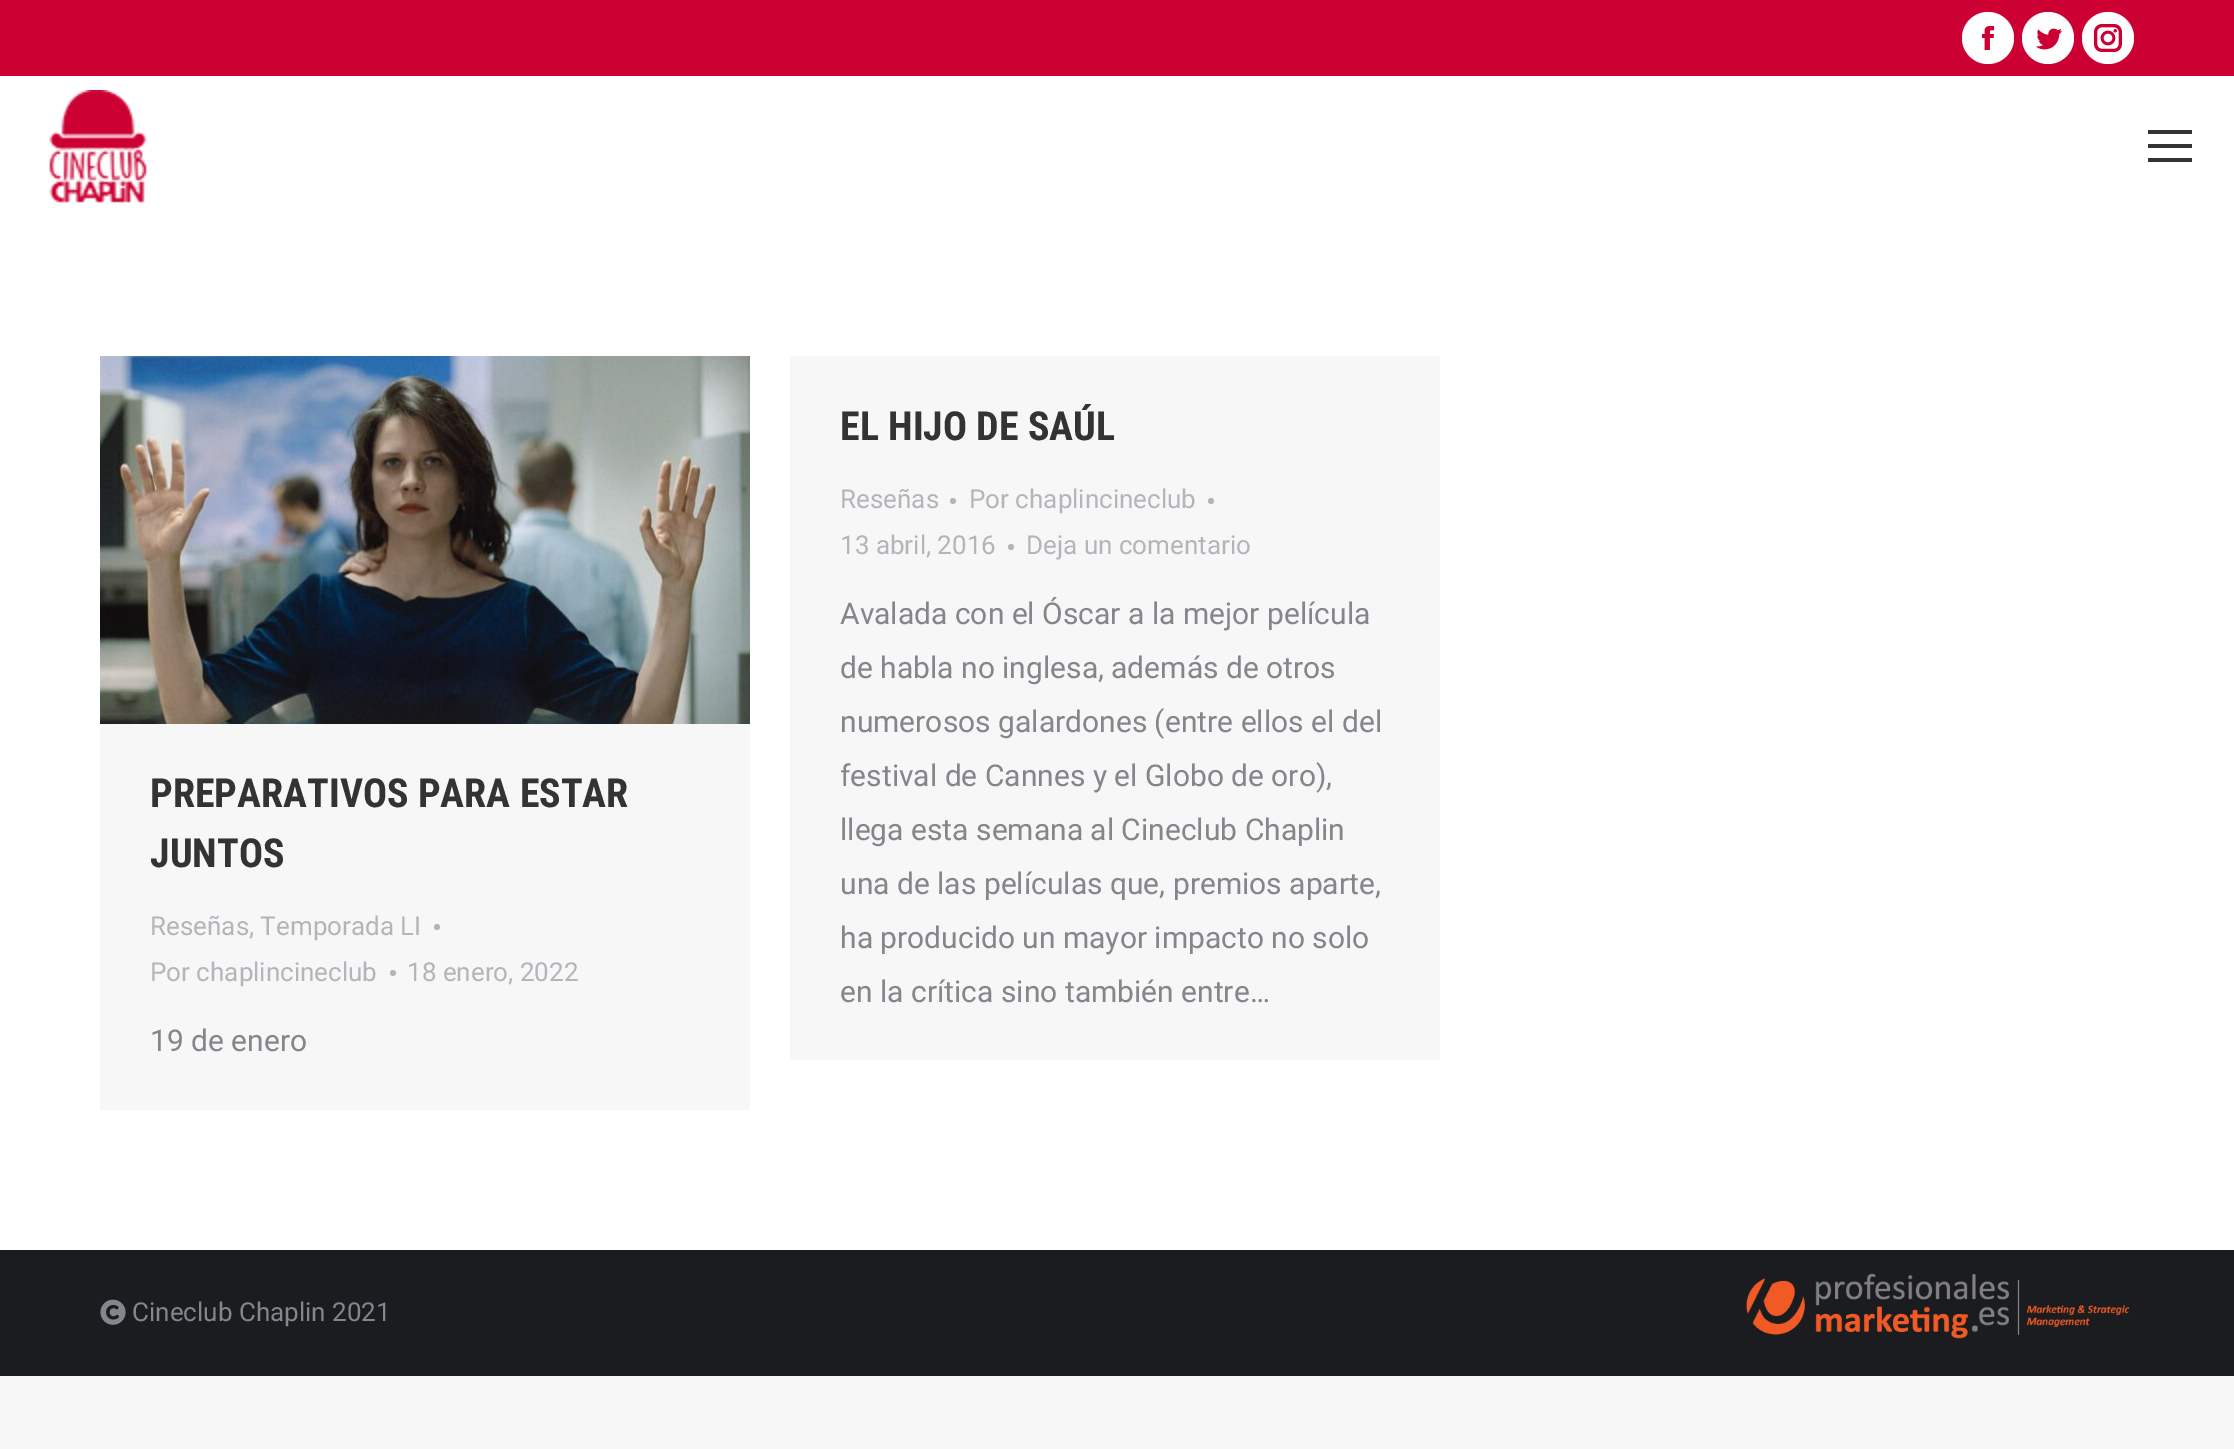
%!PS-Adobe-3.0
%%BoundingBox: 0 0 2234 1449
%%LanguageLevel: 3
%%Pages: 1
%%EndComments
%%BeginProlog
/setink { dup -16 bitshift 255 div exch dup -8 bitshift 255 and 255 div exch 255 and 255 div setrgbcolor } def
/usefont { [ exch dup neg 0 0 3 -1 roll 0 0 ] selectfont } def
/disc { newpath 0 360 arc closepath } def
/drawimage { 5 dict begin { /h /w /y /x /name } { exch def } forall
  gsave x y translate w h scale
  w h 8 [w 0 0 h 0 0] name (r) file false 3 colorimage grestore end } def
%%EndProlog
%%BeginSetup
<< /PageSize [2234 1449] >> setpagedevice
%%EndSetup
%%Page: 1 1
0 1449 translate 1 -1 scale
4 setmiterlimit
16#F7F7F7 setink
0 0 2234 1449 rectfill
16#FFFFFF setink
0 76 2234 1174 rectfill
16#CC0033 setink
0 0 2234 76 rectfill
16#FFFFFF setink
1988 38 26 disc fill
(img1.raw) 1981 26 14 24 drawimage
2048 38 26 disc fill
(img2.raw) 2036 28 26 22 drawimage
2108 38 26 disc fill
(img3.raw) 2094 24 28 28 drawimage
(img4.raw) 49 90 98 113 drawimage
[
    [2148 130 44 4 16#333333]
    [2148 144 44 4 16#333333]
    [2148 158 44 4 16#333333]
    [100 724 650 386 16#F7F7F7]
] { aload pop setink rectfill } forall
(img5.raw) 100 356 650 368 drawimage
/RobotoCondensed-Bold 40 usefont
16#333333 setink
150 807 moveto (PREPARATIVOS PARA ESTAR) show
150 867 moveto (JUNTOS) show
/Roboto-Regular 26 usefont
16#B4B5BB setink
150 935 moveto (Reseñas, Temporada LI) show
437 927 3 disc fill
150 981 moveto (Por chaplincineclub) show
393 973 3 disc fill
407 981 moveto (18 enero, 2022) show
/Roboto-Regular 30 usefont
16#85868C setink
150 1051 moveto (19 de enero) show
16#F7F7F7 setink
790 356 650 704 rectfill
/RobotoCondensed-Bold 40 usefont
16#333333 setink
840 440 moveto (EL HIJO DE SAÚL) show
/Roboto-Regular 26 usefont
16#B4B5BB setink
840 508 moveto (Reseñas) show
953 501 3 disc fill
969 508 moveto (Por chaplincineclub) show
1211 501 3 disc fill
840 554 moveto (13 abril, 2016) show
1011 547 3 disc fill
1026 554 moveto (Deja un comentario) show
/Roboto-Regular 30 usefont
16#85868C setink
[
    [(Avalada con el Óscar a la mejor película) 840 624]
    [(de habla no inglesa, además de otros) 840 678]
    [(numerosos galardones \(entre ellos el del) 840 732]
    [(festival de Cannes y el Globo de oro\),) 840 786]
    [(llega esta semana al Cineclub Chaplin) 840 840]
    [(una de las películas que, premios aparte,) 840 894]
    [(ha producido un mayor impacto no solo) 840 948]
    [(en la crítica sino también entre…) 840 1002]
] { aload pop moveto show } forall
16#1A1C20 setink
0 1250 2234 126 rectfill
(img6.raw) 100 1299 26 26 drawimage
/Roboto-Regular 26 usefont
16#85868C setink
132 1321 moveto (Cineclub Chaplin 2021) show
(img7.raw) 1746 1273 384 66 drawimage
showpage
%%EOF
